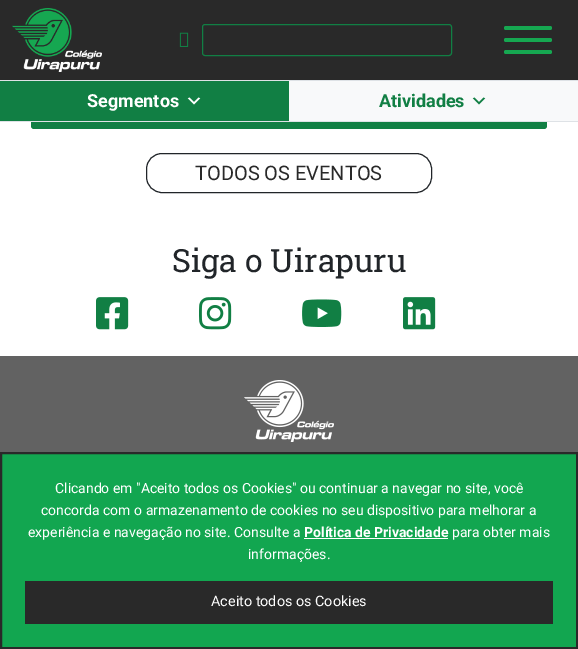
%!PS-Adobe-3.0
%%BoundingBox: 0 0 578 649
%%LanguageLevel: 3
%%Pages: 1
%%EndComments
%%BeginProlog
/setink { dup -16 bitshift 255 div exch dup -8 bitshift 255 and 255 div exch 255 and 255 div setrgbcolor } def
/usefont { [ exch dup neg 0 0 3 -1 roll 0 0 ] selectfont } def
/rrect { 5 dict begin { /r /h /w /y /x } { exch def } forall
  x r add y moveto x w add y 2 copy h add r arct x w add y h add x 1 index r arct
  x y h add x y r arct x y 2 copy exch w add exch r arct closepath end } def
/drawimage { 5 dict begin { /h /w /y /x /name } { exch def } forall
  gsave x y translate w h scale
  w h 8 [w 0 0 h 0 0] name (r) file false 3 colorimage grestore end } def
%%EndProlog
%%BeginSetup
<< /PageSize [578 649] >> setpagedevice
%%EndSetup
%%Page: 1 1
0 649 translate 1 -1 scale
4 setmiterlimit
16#FFFFFF setink
0 0 578 649 rectfill
16#292929 setink
0 0 578 80 rectfill
(img1.raw) 12 8 90 64 drawimage
(img2.raw) 179 32 10 15 drawimage
16#117F44 setink
202.5 24.5 249 31 2.5 rrect stroke
16#16A751 setink
504 26 48 4 2 rrect fill
504 38 48 4 2 rrect fill
504 50 48 4 2 rrect fill
16#DEE2E6 setink
0 80 578 1 rectfill
16#117F44 setink
31 81 516 48 3 rrect fill
16#DEE2E6 setink
0 121 578 1 rectfill
16#117F44 setink
0 81 34 40 rectfill
/Roboto-Bold 18 usefont
16#FFFFFF setink
87 107 moveto (Segmentos) show
(img3.raw) 187 97 14 8 drawimage
16#F8F9FA setink
289 81 289 40 rectfill
16#117F44 setink
379 107 moveto (Atividades) show
(img4.raw) 472 97 14 8 drawimage
16#212529 setink
146.5 153.5 285 39 15.5 rrect stroke
/Roboto-Regular 20 usefont
16#292929 setink
195 180 moveto (TODOS OS EVENTOS) show
/RobotoSlab-Regular 32 usefont
16#212529 setink
172 272 moveto (Siga o Uirapuru) show
(img5.raw) 96 297 33 33 drawimage
(img6.raw) 199 297 33 33 drawimage
(img7.raw) 302 299 40 28 drawimage
(img8.raw) 403 297 33 33 drawimage
16#626262 setink
0 356 578 96 rectfill
(img9.raw) 244 380 90 62 drawimage
16#12A650 setink
1 453 moveto 577 453 lineto 577 648 lineto 1 648 lineto closepath gsave fill grestore
16#292929 setink
2 setlinewidth
stroke
/Roboto-Regular 14 usefont
16#FFFFFF setink
[
    [(Clicando em "Aceito todos os Cookies" ou continuar a navegar no site, você) 55 493]
    [(concorda com o armazenamento de cookies no seu dispositivo para melhorar a) 41 515]
    [(experiência e navegação no site. Consulte a) 28 537]
] { aload pop moveto show } forall
/Roboto-Bold 14 usefont
304 537 moveto (Política de Privacidade) show
304 538 144 1 rectfill
/Roboto-Regular 14 usefont
452 537 moveto (para obter mais) show
248 559 moveto (informações.) show
16#292929 setink
25 581 528 43 rectfill
/Roboto-Regular 14.4 usefont
16#FFFFFF setink
211 606 moveto (Aceito todos os Cookies) show
showpage
%%EOF
